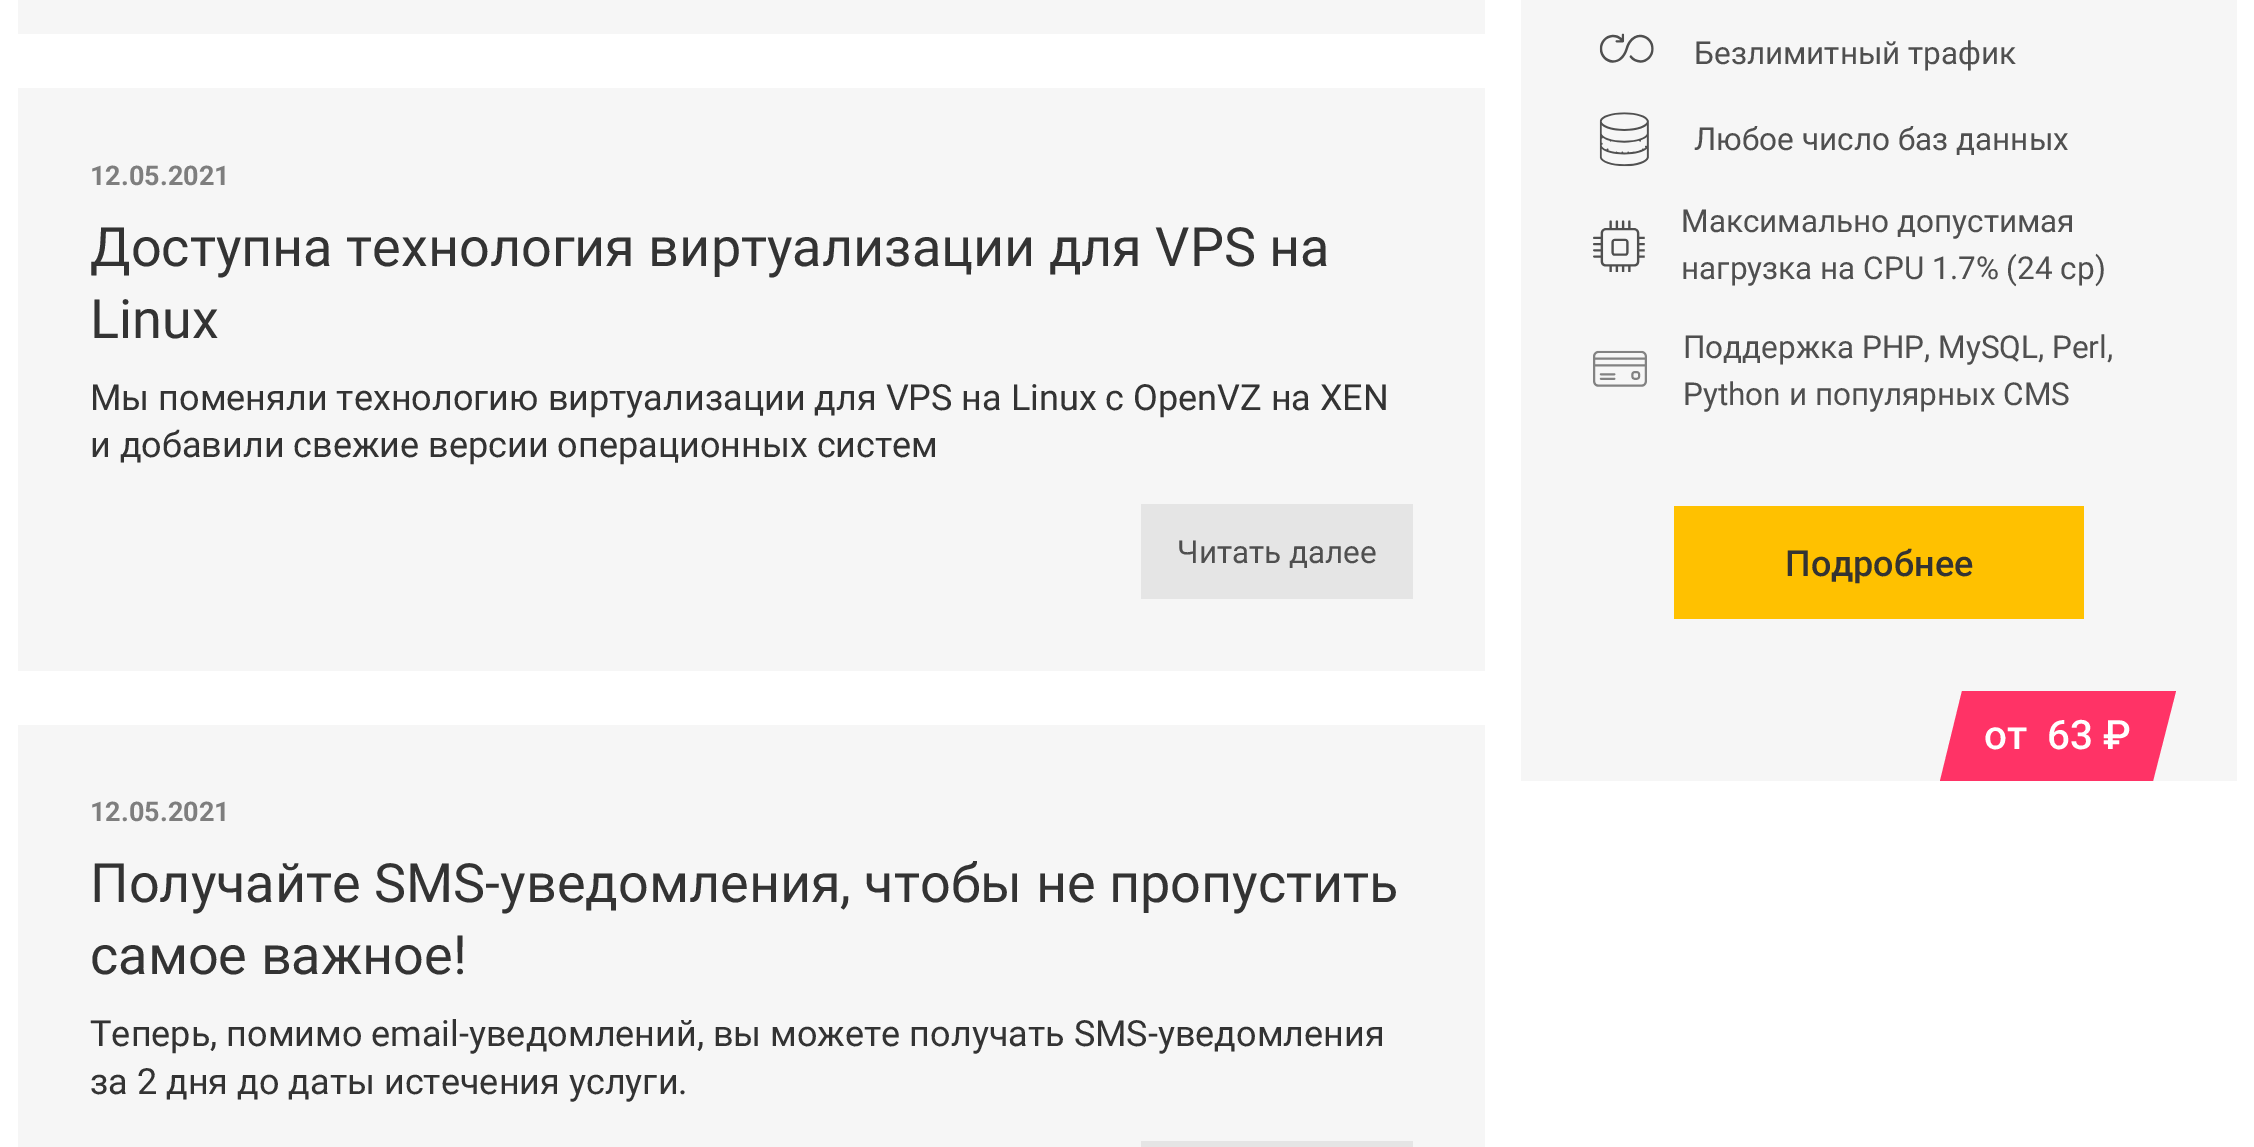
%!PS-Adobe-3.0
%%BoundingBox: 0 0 2254 1147
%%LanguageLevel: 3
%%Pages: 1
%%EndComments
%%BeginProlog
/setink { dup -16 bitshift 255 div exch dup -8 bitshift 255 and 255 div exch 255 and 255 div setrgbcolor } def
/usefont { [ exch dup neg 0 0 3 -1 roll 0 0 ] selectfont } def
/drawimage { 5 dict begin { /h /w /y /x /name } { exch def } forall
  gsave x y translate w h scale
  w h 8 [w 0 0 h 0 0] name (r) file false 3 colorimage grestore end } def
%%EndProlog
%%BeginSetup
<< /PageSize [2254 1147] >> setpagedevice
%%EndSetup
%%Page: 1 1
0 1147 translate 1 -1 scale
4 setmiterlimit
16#FFFFFF setink
0 0 2254 1147 rectfill
16#F6F6F6 setink
18 0 1467 34 rectfill
18 88 1467 583 rectfill
/Roboto-Bold 27 usefont
16#7E7E7E setink
90 185 moveto (12.05.2021) show
/Roboto-Regular 54 usefont
16#333333 setink
90 266 moveto (Доступна технология виртуализации для VPS на) show
90 338 moveto (Linux) show
/Roboto-Regular 36 usefont
90 410 moveto (Мы поменяли технологию виртуализации для VPS на Linux с OpenVZ на XEN) show
90 457 moveto (и добавили свежие версии операционных систем) show
16#E5E5E5 setink
1141 504 272 95 rectfill
/Roboto-Regular 31.5 usefont
16#4F4F4F setink
1177 563 moveto (Читать далее) show
16#F6F6F6 setink
18 725 1467 422 rectfill
/Roboto-Bold 27 usefont
16#7E7E7E setink
90 821 moveto (12.05.2021) show
/Roboto-Regular 54 usefont
16#333333 setink
90 902 moveto (Получайте SMS-уведомления, чтобы не пропустить) show
90 974 moveto (самое важное!) show
/Roboto-Regular 36 usefont
90 1046 moveto (Теперь, помимо email-уведомлений, вы можете получать SMS-уведомления) show
90 1094 moveto (за 2 дня до даты истечения услуги.) show
16#E5E5E5 setink
1141 1141 272 6 rectfill
16#F6F6F6 setink
1521 0 716 781 rectfill
(img1.raw) 1599 33 55 30 drawimage
/Roboto-Regular 31.5 usefont
16#4F4F4F setink
1694 64 moveto (Безлимитный трафик) show
(img2.raw) 1599 112 50 55 drawimage
1694 150 moveto (Любое число баз данных) show
(img3.raw) 1593 220 52 52 drawimage
1681 232 moveto (Максимально допустимая) show
1681 279 moveto (нагрузка на CPU 1.7% \(24 cp\)) show
(img4.raw) 1593 350 54 37 drawimage
1683 358 moveto (Поддержка PHP, MySQL, Perl,) show
1683 405 moveto (Python и популярных CMS) show
16#FFC100 setink
1674 506 410 113 rectfill
/Roboto-Medium 36 usefont
16#333333 setink
1785 576 moveto (Подробнее) show
16#FF3366 setink
1962 691 moveto 2176 691 lineto 2153 781 lineto 1940 781 lineto closepath fill
/Roboto-Medium 40.5 usefont
16#FFFFFF setink
1984 749 moveto (от  63 ₽) show
showpage
%%EOF
